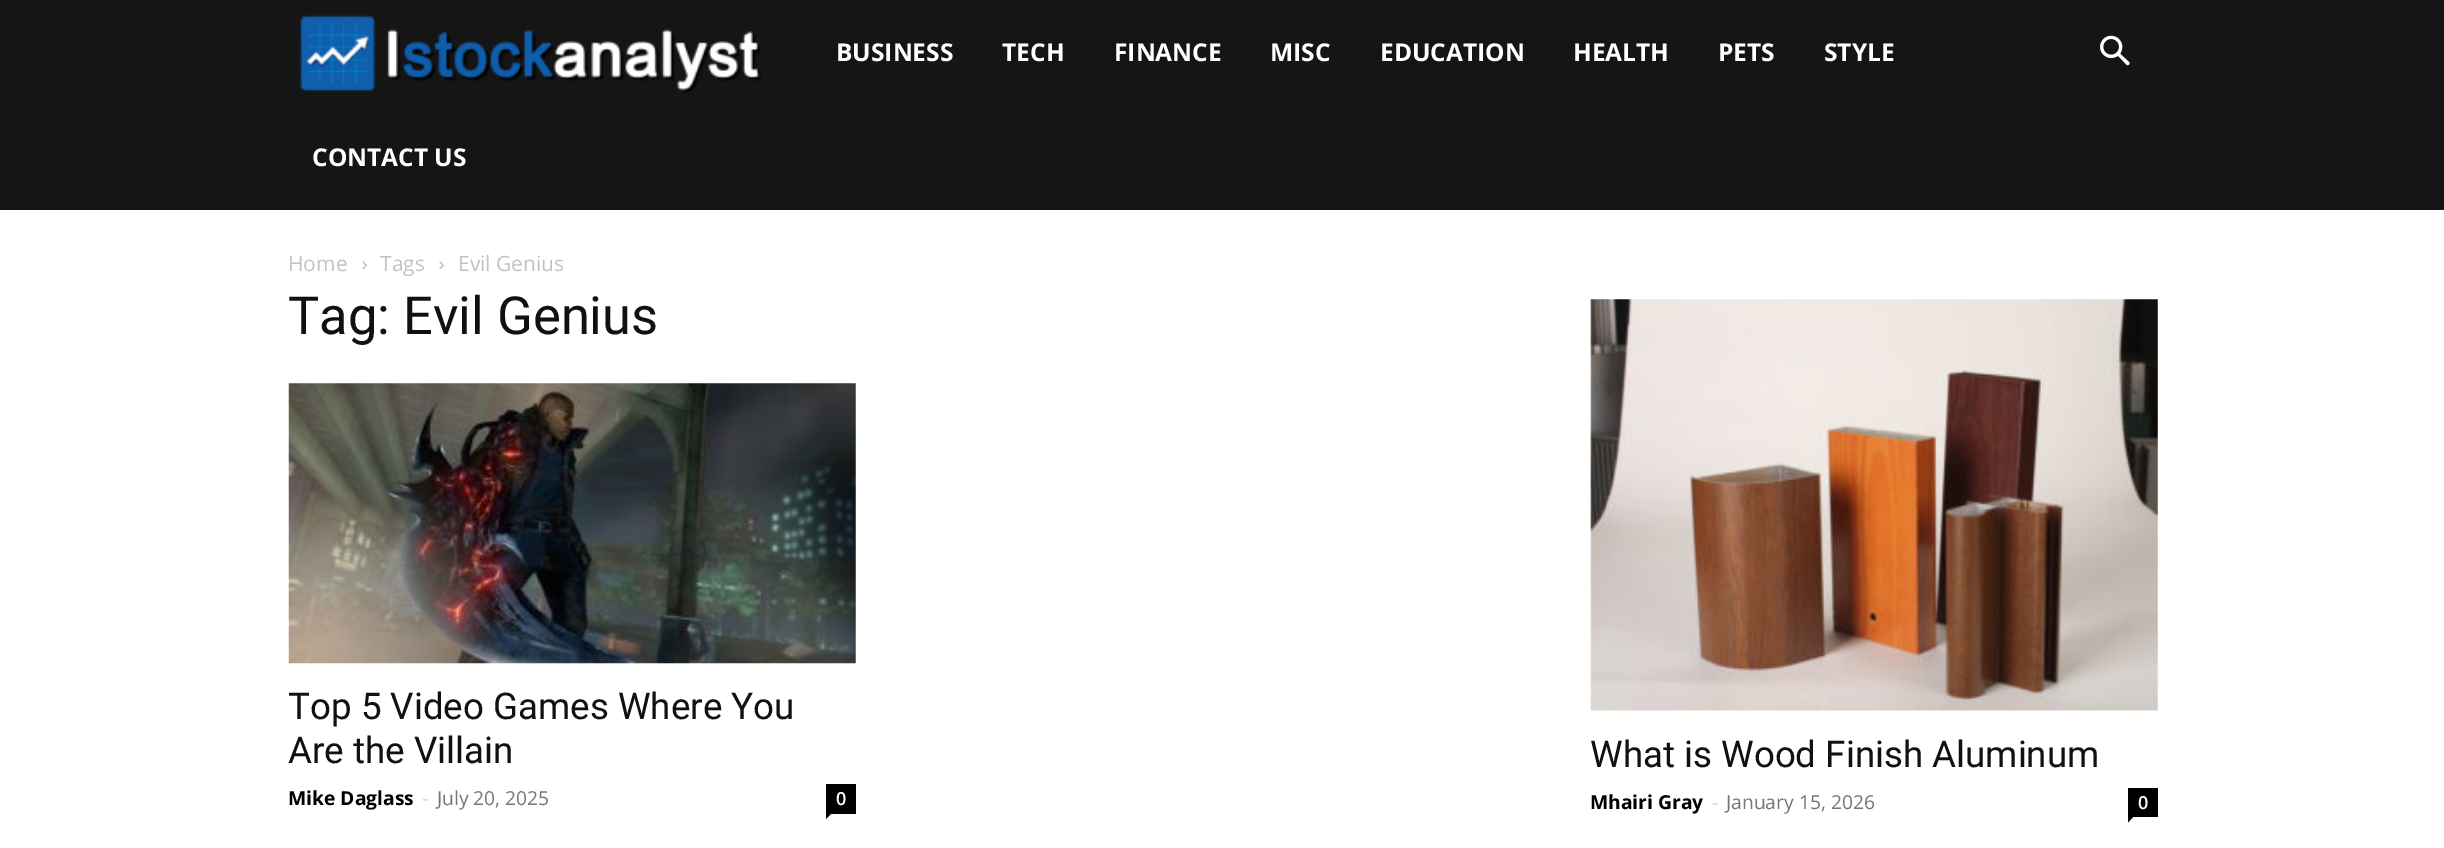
%!PS-Adobe-3.0
%%BoundingBox: 0 0 2444 848
%%LanguageLevel: 3
%%Pages: 1
%%EndComments
%%BeginProlog
/setink { dup -16 bitshift 255 div exch dup -8 bitshift 255 and 255 div exch 255 and 255 div setrgbcolor } def
/usefont { [ exch dup neg 0 0 3 -1 roll 0 0 ] selectfont } def
/drawimage { 5 dict begin { /h /w /y /x /name } { exch def } forall
  gsave x y translate w h scale
  w h 8 [w 0 0 h 0 0] name (r) file false 3 colorimage grestore end } def
%%EndProlog
%%BeginSetup
<< /PageSize [2444 848] >> setpagedevice
%%EndSetup
%%Page: 1 1
0 848 translate 1 -1 scale
4 setmiterlimit
16#FFFFFF setink
0 0 2444 848 rectfill
16#151515 setink
0 0 2444 210 rectfill
(img1.raw) 299 15 462 78 drawimage
/OpenSans-Bold 24.5 usefont
16#FFFFFF setink
[
    [(BUSINESS) 836 61]
    [(TECH) 1002 61]
    [(FINANCE) 1114 61]
    [(MISC) 1270 61]
    [(EDUCATION) 1380 61]
    [(HEALTH) 1573 61]
    [(PETS) 1718 61]
    [(STYLE) 1824 61]
    [(CONTACT US) 312 166]
] { aload pop moveto show } forall
(img2.raw) 2100 35 30 31 drawimage
/OpenSans-Regular 21 usefont
16#C3C3C3 setink
288 271 moveto (Home) show
(img3.raw) 362 261 5 9 drawimage
380 271 moveto (Tags) show
(img3.raw) 439 261 5 9 drawimage
458 271 moveto (Evil Genius) show
/Roboto-Regular 52.5 usefont
16#111111 setink
288 334 moveto (Tag: Evil Genius) show
(img4.raw) 288 383 568 281 drawimage
/Roboto-Regular 36.75 usefont
288 719 moveto (Top 5 Video Games Where You) show
288 763 moveto (Are the Villain) show
/OpenSans-Bold 19.25 usefont
16#000000 setink
288 805 moveto (Mike Daglass) show
/OpenSans-Regular 19.25 usefont
16#CCCCCC setink
422 805 moveto (-) show
16#767676 setink
437 805 moveto (July 20, 2025) show
16#000000 setink
826 784 30 30 rectfill
/OpenSans-SemiBold 18 usefont
16#FFFFFF setink
836 805 moveto (0) show
16#000000 setink
826 814 moveto 831 814 lineto 826 819 lineto closepath fill
(img5.raw) 1590 299 568 412 drawimage
/Roboto-Regular 36.75 usefont
16#111111 setink
1590 767 moveto (What is Wood Finish Aluminum) show
/OpenSans-Bold 19.25 usefont
16#000000 setink
1590 809 moveto (Mhairi Gray) show
/OpenSans-Regular 19.25 usefont
16#CCCCCC setink
1712 809 moveto (-) show
16#767676 setink
1726 809 moveto (January 15, 2026) show
16#000000 setink
2128 788 30 29 rectfill
/OpenSans-SemiBold 18 usefont
16#FFFFFF setink
2138 809 moveto (0) show
16#000000 setink
2128 817 moveto 2133 817 lineto 2128 822.5 lineto closepath fill
showpage
%%EOF
